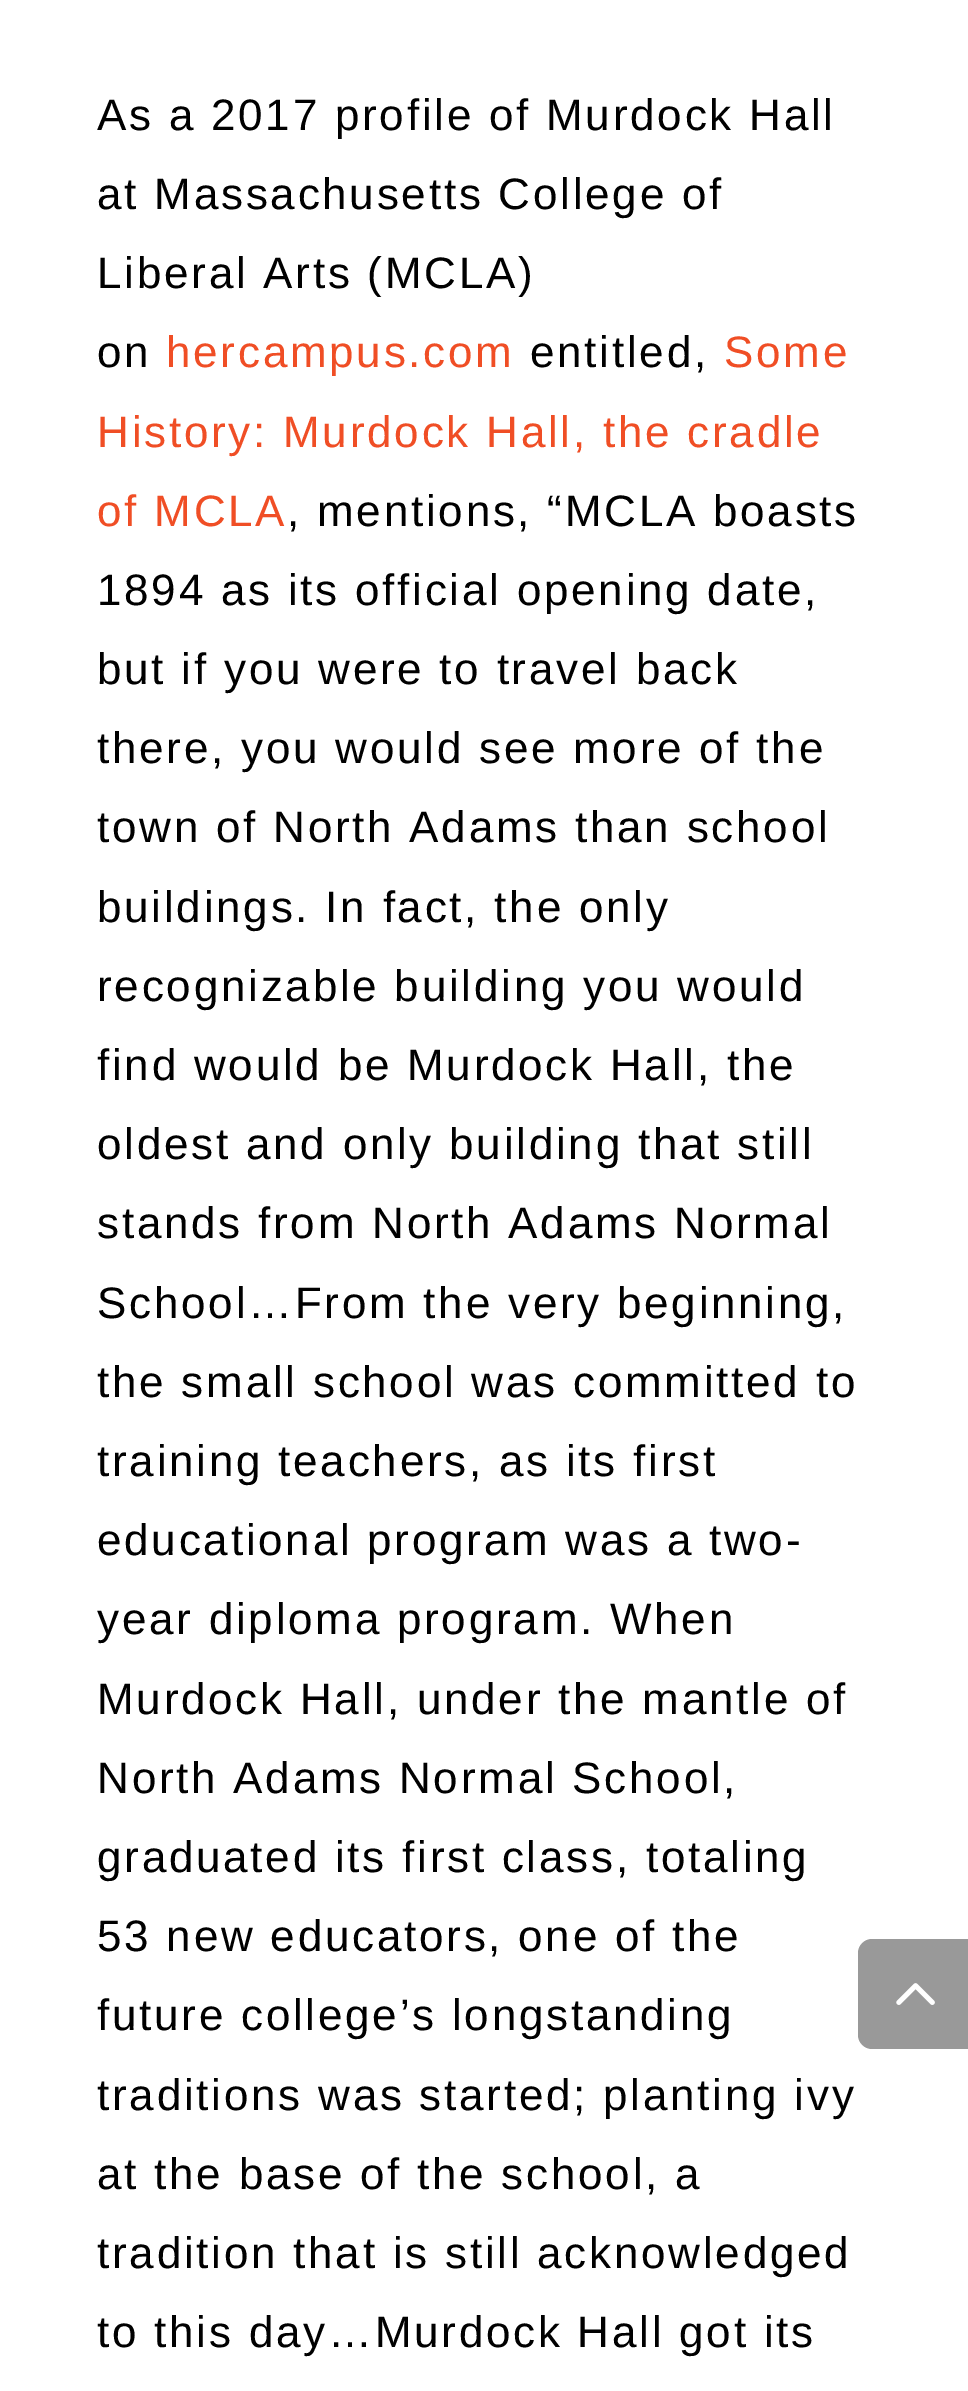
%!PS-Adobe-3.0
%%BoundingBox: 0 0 968 2391
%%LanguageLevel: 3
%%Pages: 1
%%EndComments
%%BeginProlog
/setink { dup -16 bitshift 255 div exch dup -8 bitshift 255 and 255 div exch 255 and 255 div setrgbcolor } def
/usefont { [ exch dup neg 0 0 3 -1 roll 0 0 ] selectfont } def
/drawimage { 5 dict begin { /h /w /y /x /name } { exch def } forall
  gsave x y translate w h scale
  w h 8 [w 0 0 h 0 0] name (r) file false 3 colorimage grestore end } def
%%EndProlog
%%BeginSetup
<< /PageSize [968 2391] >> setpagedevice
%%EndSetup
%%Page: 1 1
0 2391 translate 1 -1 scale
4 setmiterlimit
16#FFFFFF setink
0 0 968 2391 rectfill
/LiberationSans-Regular 44 usefont
16#000000 setink
97 130 moveto 2.75 0 (As a 2017 profile of Murdock Hall) ashow
97 209 moveto 2.75 0 (at Massachusetts College of) ashow
97 288 moveto 2.75 0 (Liberal Arts \(MCLA\)) ashow
97 367 moveto 2.75 0 (on) ashow
16#F04E25 setink
166 367 moveto 2.75 0 (hercampus.com) ashow
16#000000 setink
530 367 moveto 2.75 0 (entitled,) ashow
16#F04E25 setink
724 367 moveto 2.75 0 (Some) ashow
97 447 moveto 2.75 0 (History: Murdock Hall, the cradle) ashow
97 526 moveto 2.75 0 (of MCLA) ashow
16#000000 setink
287 526 moveto 2.75 0 (, mentions, “MCLA boasts) ashow
97 605 moveto 2.75 0 (1894 as its official opening date,) ashow
97 684 moveto 2.75 0 (but if you were to travel back) ashow
97 763 moveto 2.75 0 (there, you would see more of the) ashow
97 842 moveto 2.75 0 (town of North Adams than school) ashow
97 922 moveto 2.75 0 (buildings. In fact, the only) ashow
97 1001 moveto 2.75 0 (recognizable building you would) ashow
97 1080 moveto 2.75 0 (find would be Murdock Hall, the) ashow
97 1159 moveto 2.75 0 (oldest and only building that still) ashow
97 1238 moveto 2.75 0 (stands from North Adams Normal) ashow
97 1318 moveto 2.75 0 (School…From the very beginning,) ashow
97 1397 moveto 2.75 0 (the small school was committed to) ashow
97 1476 moveto 2.75 0 (training teachers, as its first) ashow
97 1555 moveto 2.75 0 (educational program was a two-) ashow
97 1634 moveto 2.75 0 (year diploma program. When) ashow
97 1714 moveto 2.75 0 (Murdock Hall, under the mantle of) ashow
97 1793 moveto 2.75 0 (North Adams Normal School,) ashow
97 1872 moveto 2.75 0 (graduated its first class, totaling) ashow
97 1951 moveto 2.75 0 (53 new educators, one of the) ashow
97 2030 moveto 2.75 0 (future college’s longstanding) ashow
97 2110 moveto 2.75 0 (traditions was started; planting ivy) ashow
97 2189 moveto 2.75 0 (at the base of the school, a) ashow
97 2268 moveto 2.75 0 (tradition that is still acknowledged) ashow
97 2347 moveto 2.75 0 (to this day…Murdock Hall got its) ashow
16#999999 setink
872 1939 moveto 968 1939 lineto 968 2049 lineto 872 2049 lineto 864.5 2049 858 2042.5 858 2035 curveto 858 1953 lineto 858 1945.5 864.5 1939 872 1939 curveto closepath fill
(img1.raw) 896 1983 39 22 drawimage
showpage
%%EOF
